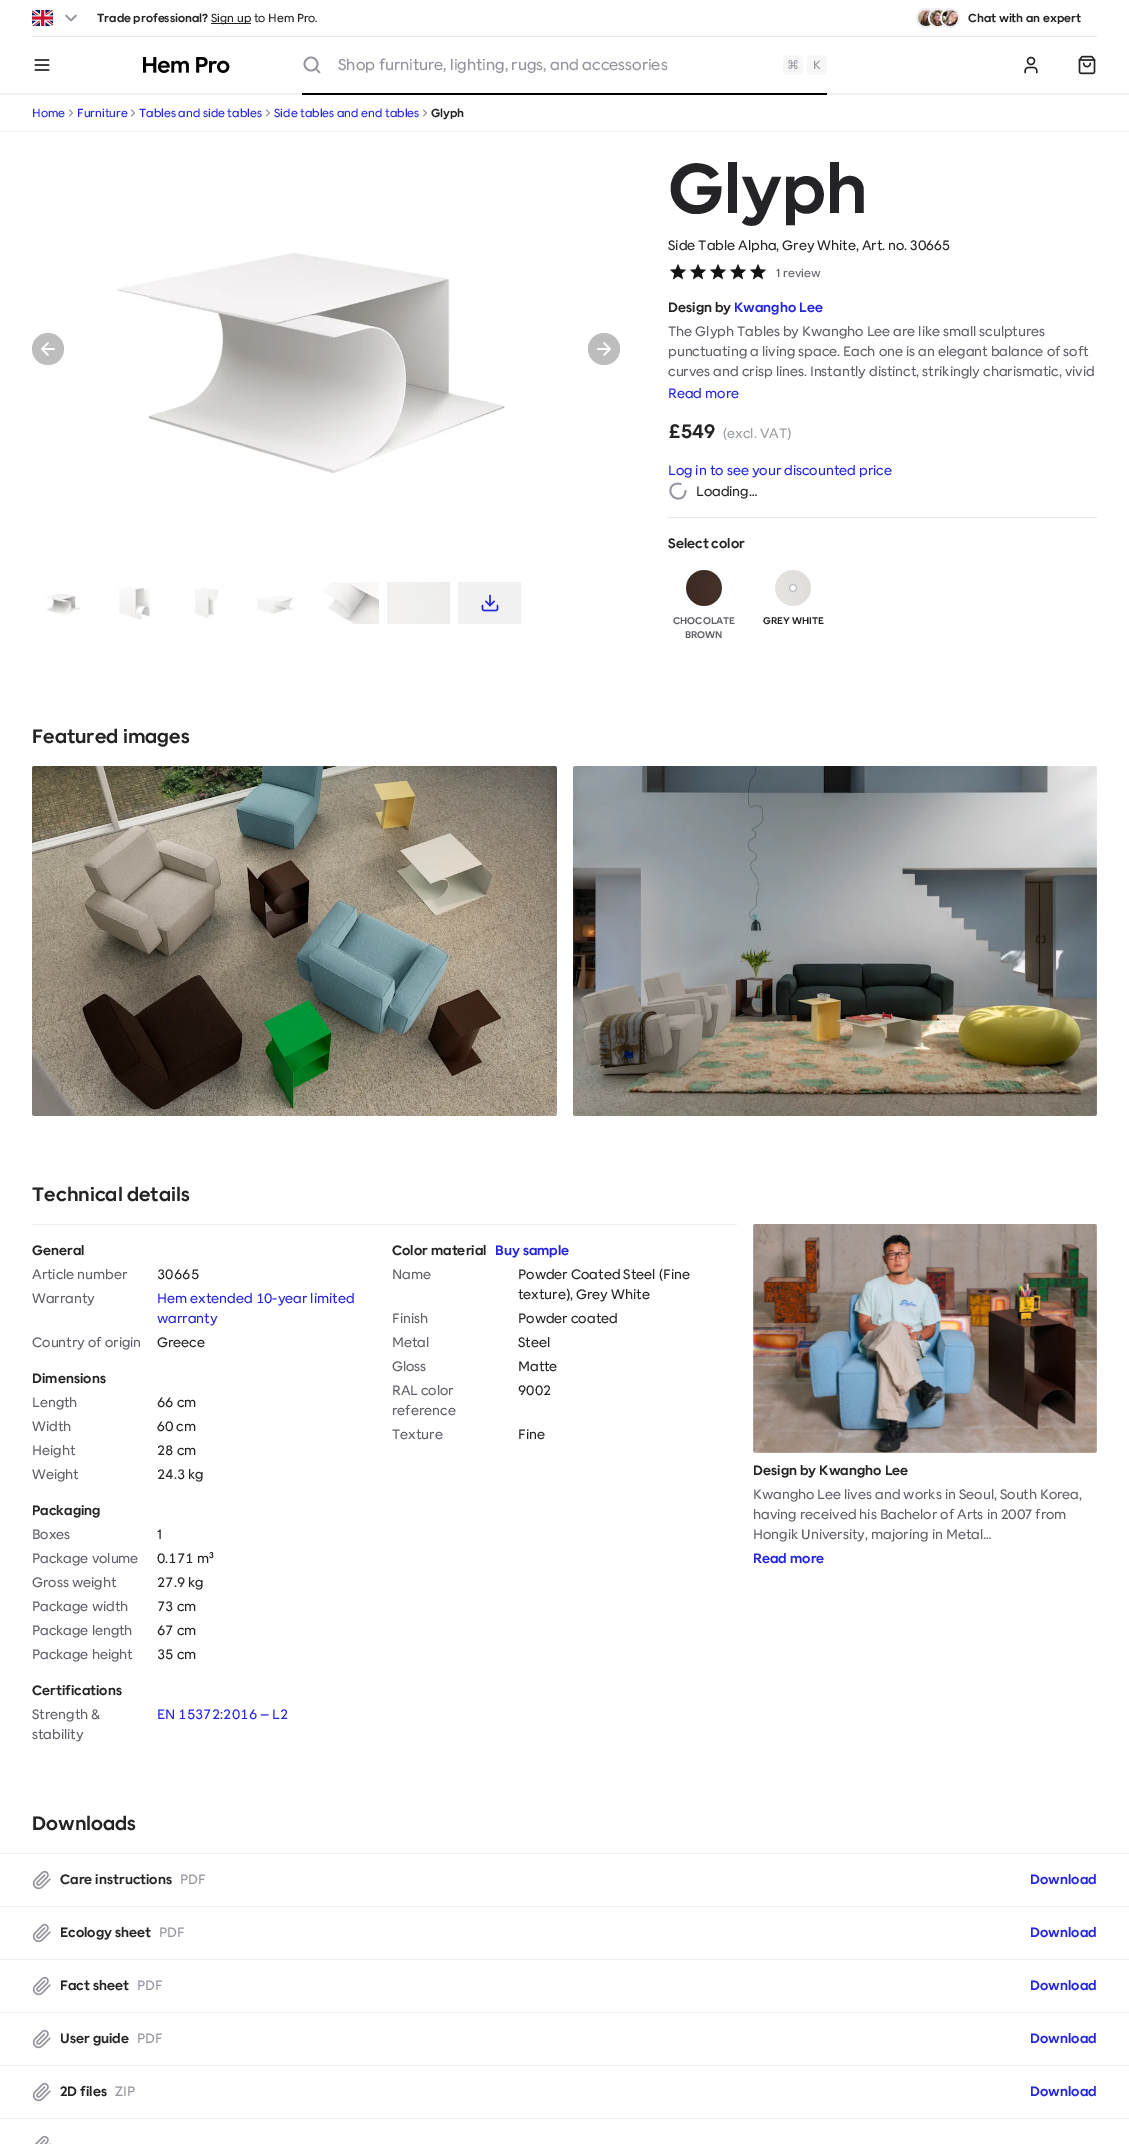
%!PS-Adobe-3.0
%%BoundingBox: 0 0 1129 2144
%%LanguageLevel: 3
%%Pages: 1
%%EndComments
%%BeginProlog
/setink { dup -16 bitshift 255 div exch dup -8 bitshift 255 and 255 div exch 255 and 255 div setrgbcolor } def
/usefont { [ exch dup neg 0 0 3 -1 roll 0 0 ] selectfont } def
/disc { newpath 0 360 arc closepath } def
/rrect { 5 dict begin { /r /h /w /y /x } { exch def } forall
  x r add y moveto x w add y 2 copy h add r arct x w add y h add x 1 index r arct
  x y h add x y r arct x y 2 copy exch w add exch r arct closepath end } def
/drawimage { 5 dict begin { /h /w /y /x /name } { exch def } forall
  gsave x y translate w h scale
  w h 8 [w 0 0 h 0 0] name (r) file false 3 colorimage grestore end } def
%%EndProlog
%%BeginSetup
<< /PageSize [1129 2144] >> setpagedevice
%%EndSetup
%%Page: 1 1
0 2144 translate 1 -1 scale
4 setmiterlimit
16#FFFFFF setink
0 0 1129 2144 rectfill
16#E5E7EB setink
32 36 1065 1 rectfill
(img1.raw) 32 10 21 16 drawimage
16#93949D setink
1.7 setlinewidth
1 setlinecap
1 setlinejoin
66 15.5 moveto 71 20.5 lineto 76 15.5 lineto stroke
/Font-Medium 12 usefont
16#242427 setink
97 22 moveto (Trade professional?) show
211 23 40 1 rectfill
/Font-Regular 12 usefont
211 22 moveto (Sign up to Hem Pro.) show
16#EEEEF0 setink
2 setlinewidth
0 setlinecap
0 setlinejoin
926 18 9 disc stroke
(img2.raw) 918 10 15 16 drawimage
938 18 9 disc stroke
(img3.raw) 930 10 15 16 drawimage
950 18 9 disc stroke
(img4.raw) 942 10 16 16 drawimage
/Font-Medium 12 usefont
16#242427 setink
968 22 moveto (Chat with an expert) show
16#F1F1F1 setink
0 93 1129 2 rectfill
(img5.raw) 34 59 16 12 drawimage
(img6.raw) 143 57 87 16 drawimage
16#000000 setink
302 93 525 2 rectfill
16#93949D setink
1.7 setlinewidth
311 64 6.5 disc stroke
1 setlinecap
1 setlinejoin
319.5 72.5 moveto 316 69 lineto stroke
/Font-Regular 16 usefont
338 70 moveto (Shop furniture, lighting, rugs, and accessories) show
16#F7F7F8 setink
783 55 20 20 4 rrect fill
/DejaVuSans-Regular 12 usefont
16#93949D setink
787 69 moveto (⌘) show
16#F7F7F8 setink
807 55 20 20 4 rrect fill
/Font-Regular 12 usefont
16#93949D setink
813 69 moveto (K) show
(img7.raw) 1024 56 14 18 drawimage
(img8.raw) 1078 55 18 20 drawimage
16#F1F1F1 setink
0 131 1129 1 rectfill
16#2326DE setink
32 117 moveto (Home) show
16#93949D setink
1 setlinewidth
69.5 116 moveto 72.5 113 lineto 69.5 110 lineto stroke
16#2326DE setink
77 117 moveto (Furniture) show
16#93949D setink
131.5 116 moveto 134.5 113 lineto 131.5 110 lineto stroke
16#2326DE setink
139 117 moveto (Tables and side tables) show
16#93949D setink
266.5 116 moveto 269.5 113 lineto 266.5 110 lineto stroke
16#2326DE setink
274 117 moveto (Side tables and end tables) show
16#93949D setink
423.5 116 moveto 426.5 113 lineto 423.5 110 lineto stroke
/Font-Medium 12 usefont
16#242427 setink
431 117 moveto (Glyph) show
16#BDBDBE setink
48 349 16 disc fill
16#FFFFFF setink
1.7 setlinewidth
48 355 moveto 42 349 lineto 48 343 lineto 54 349 moveto 42 349 lineto stroke
(img9.raw) 117 253 388 220 drawimage
16#BDBDBE setink
604 349 16 disc fill
16#FFFFFF setink
598 349 moveto 610 349 lineto 604 343 moveto 610 349 lineto 604 355 lineto stroke
(img10.raw) 45 594 35 22 drawimage
(img11.raw) 119 586 31 34 drawimage
(img12.raw) 194 588 24 30 drawimage
(img13.raw) 257 596 38 18 drawimage
(img14.raw) 324 582 55 42 drawimage
(img15.raw) 387 582 63 42 drawimage
16#F1F1F1 setink
458 582 63 42 rectfill
(img16.raw) 481 594 18 18 drawimage
/Font-Medium 72 usefont
16#242427 setink
668 213 moveto (Glyph) show
/Font-Regular 14 usefont
668 250 moveto (Side Table Alpha, Grey White, Art. no. 30665) show
(img17.raw) 669 263 18 17 drawimage
(img17.raw) 689 263 18 17 drawimage
(img17.raw) 709 263 18 17 drawimage
(img17.raw) 729 263 18 17 drawimage
(img17.raw) 749 263 18 17 drawimage
/Font-Regular 12 usefont
16#606169 setink
776 277 moveto (1 review) show
/Font-Medium 14 usefont
16#242427 setink
668 312 moveto (Design by) show
16#2326DE setink
734 312 moveto (Kwangho Lee) show
/Font-Regular 14 usefont
16#606169 setink
[
    [(The Glyph Tables by Kwangho Lee are like small sculptures) 668 336]
    [(punctuating a living space. Each one is an elegant balance of soft) 668 356]
    [(curves and crisp lines. Instantly distinct, strikingly charismatic, vivid) 668 376]
] { aload pop moveto show } forall
16#2326DE setink
668 398 moveto (Read more) show
/Font-Medium 20 usefont
16#242427 setink
668 438 moveto (£549) show
/Font-Regular 14 usefont
16#9B9FA2 setink
723 438 moveto (\(excl. VAT\)) show
16#2326DE setink
668 475 moveto (Log in to see your discounted price) show
16#93949D setink
685.5 491 moveto 685.5 493 684.5 495 683.5 496.5 curveto 676.5 503.5 665.5 492.5 672.5 485.5 curveto 674.5 483.5 677.5 483 680.5 484 curveto stroke
16#242427 setink
696 496 moveto (Loading…) show
16#E5E7EB setink
668 517 429 1 rectfill
/Font-Medium 14 usefont
16#242427 setink
668 548 moveto (Select color) show
(img18.raw) 686 570 36 36 drawimage
/Font-Medium 10 usefont
16#606169 setink
673 624 moveto (CHOCOLATE) show
685 638 moveto (BROWN) show
(img19.raw) 775 570 36 36 drawimage
16#FFFFFF setink
793 588 3.5 disc gsave fill grestore
16#B9BAC0 setink
1 setlinewidth
0 setlinecap
0 setlinejoin
stroke
16#242427 setink
763 624 moveto (GREY WHITE) show
/Font-Medium 20 usefont
32 743 moveto (Featured images) show
(img20.raw) 32 766 525 350 drawimage
(img21.raw) 573 766 524 350 drawimage
16#EEEEF0 setink
32 1224 705 1 rectfill
16#242427 setink
32 1201 moveto (Technical details) show
/Font-Medium 14 usefont
32 1255 moveto (General) show
/Font-Regular 14 usefont
16#606169 setink
32 1279 moveto (Article number) show
/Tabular-Regular 14 usefont
16#242427 setink
157 1279 moveto (30665) show
/Font-Regular 14 usefont
16#606169 setink
32 1303 moveto (Warranty) show
/Tabular-Regular 14 usefont
16#2326DE setink
157 1303 moveto (Hem extended 10-year limited) show
/Font-Regular 14 usefont
157 1323 moveto (warranty) show
16#606169 setink
32 1347 moveto (Country of origin) show
16#242427 setink
157 1347 moveto (Greece) show
/Font-Medium 14 usefont
32 1383 moveto (Dimensions) show
/Font-Regular 14 usefont
16#606169 setink
32 1407 moveto (Length) show
/Tabular-Regular 14 usefont
16#242427 setink
157 1407 moveto (66 cm) show
/Font-Regular 14 usefont
16#606169 setink
32 1431 moveto (Width) show
16#242427 setink
157 1431 moveto (60 cm) show
16#606169 setink
32 1455 moveto (Height) show
/Tabular-Regular 14 usefont
16#242427 setink
157 1455 moveto (28 cm) show
/Font-Regular 14 usefont
16#606169 setink
32 1479 moveto (Weight) show
/Tabular-Regular 14 usefont
16#242427 setink
157 1479 moveto (24.3 kg) show
/Font-Medium 14 usefont
32 1515 moveto (Packaging) show
/Font-Regular 14 usefont
16#606169 setink
32 1539 moveto (Boxes) show
16#242427 setink
157 1539 moveto (1) show
16#606169 setink
32 1563 moveto (Package volume) show
/Tabular-Regular 14 usefont
16#242427 setink
157 1563 moveto (0.171 m³) show
/Font-Regular 14 usefont
16#606169 setink
32 1587 moveto (Gross weight) show
/Tabular-Regular 14 usefont
16#242427 setink
157 1587 moveto (27.9 kg) show
/Font-Regular 14 usefont
16#606169 setink
32 1611 moveto (Package width) show
/Tabular-Regular 14 usefont
16#242427 setink
157 1611 moveto (73 cm) show
/Font-Regular 14 usefont
16#606169 setink
32 1635 moveto (Package length) show
/Tabular-Regular 14 usefont
16#242427 setink
157 1635 moveto (67 cm) show
/Font-Regular 14 usefont
16#606169 setink
32 1659 moveto (Package height) show
/Tabular-Regular 14 usefont
16#242427 setink
157 1659 moveto (35 cm) show
/Font-Medium 14 usefont
32 1695 moveto (Certifications) show
/Font-Regular 14 usefont
16#606169 setink
32 1719 moveto (Strength &) show
32 1739 moveto (stability) show
/Tabular-Regular 14 usefont
16#2326DE setink
157 1719 moveto (EN 15372:2016 – L2) show
/Font-Medium 14 usefont
16#242427 setink
392 1255 moveto (Color material) show
16#2326DE setink
495 1255 moveto (Buy sample) show
/Font-Regular 14 usefont
16#606169 setink
392 1279 moveto (Name) show
16#242427 setink
518 1279 moveto (Powder Coated Steel \(Fine) show
518 1299 moveto (texture\), Grey White) show
16#606169 setink
392 1323 moveto (Finish) show
16#242427 setink
518 1323 moveto (Powder coated) show
16#606169 setink
392 1347 moveto (Metal) show
16#242427 setink
518 1347 moveto (Steel) show
16#606169 setink
392 1371 moveto (Gloss) show
16#242427 setink
518 1371 moveto (Matte) show
16#606169 setink
392 1395 moveto (RAL color) show
392 1415 moveto (reference) show
/Tabular-Regular 14 usefont
16#242427 setink
518 1395 moveto (9002) show
/Font-Regular 14 usefont
16#606169 setink
392 1439 moveto (Texture) show
16#242427 setink
518 1439 moveto (Fine) show
(img22.raw) 753 1224 344 229 drawimage
/Font-Medium 14 usefont
753 1475 moveto (Design by Kwangho Lee) show
/Font-Regular 14 usefont
16#606169 setink
[
    [(Kwangho Lee lives and works in Seoul, South Korea,) 753 1499]
    [(having received his Bachelor of Arts in 2007 from) 753 1519]
    [(Hongik University, majoring in Metal…) 753 1539]
] { aload pop moveto show } forall
/Font-Medium 14 usefont
16#2326DE setink
753 1563 moveto (Read more) show
/Font-Medium 20 usefont
16#242427 setink
32 1830 moveto (Downloads) show
16#EEEEF0 setink
0 1853 1129 1 rectfill
(img23.raw) 32 1870 19 20 drawimage
/Font-Medium 14 usefont
16#242427 setink
60 1884 moveto (Care instructions) show
/Font-Regular 14 usefont
16#93949D setink
180 1884 moveto (PDF) show
/Font-Medium 14 usefont
16#2326DE setink
1030 1884 moveto (Download) show
16#EEEEF0 setink
0 1906 1129 1 rectfill
(img23.raw) 32 1923 19 20 drawimage
16#242427 setink
60 1937 moveto (Ecology sheet) show
/Font-Regular 14 usefont
16#93949D setink
159 1937 moveto (PDF) show
/Font-Medium 14 usefont
16#2326DE setink
1030 1937 moveto (Download) show
16#EEEEF0 setink
0 1959 1129 1 rectfill
(img23.raw) 32 1976 19 20 drawimage
16#242427 setink
60 1990 moveto (Fact sheet) show
/Font-Regular 14 usefont
16#93949D setink
137 1990 moveto (PDF) show
/Font-Medium 14 usefont
16#2326DE setink
1030 1990 moveto (Download) show
16#EEEEF0 setink
0 2012 1129 1 rectfill
(img23.raw) 32 2029 19 20 drawimage
16#242427 setink
60 2043 moveto (User guide) show
/Font-Regular 14 usefont
16#93949D setink
137 2043 moveto (PDF) show
/Font-Medium 14 usefont
16#2326DE setink
1030 2043 moveto (Download) show
16#EEEEF0 setink
0 2065 1129 1 rectfill
(img23.raw) 32 2082 19 20 drawimage
16#242427 setink
60 2096 moveto (2D files) show
/Font-Regular 14 usefont
16#93949D setink
115 2096 moveto (ZIP) show
/Font-Medium 14 usefont
16#2326DE setink
1030 2096 moveto (Download) show
16#EEEEF0 setink
0 2118 1129 1 rectfill
(img24.raw) 34 2135 17 9 drawimage
showpage
%%EOF
